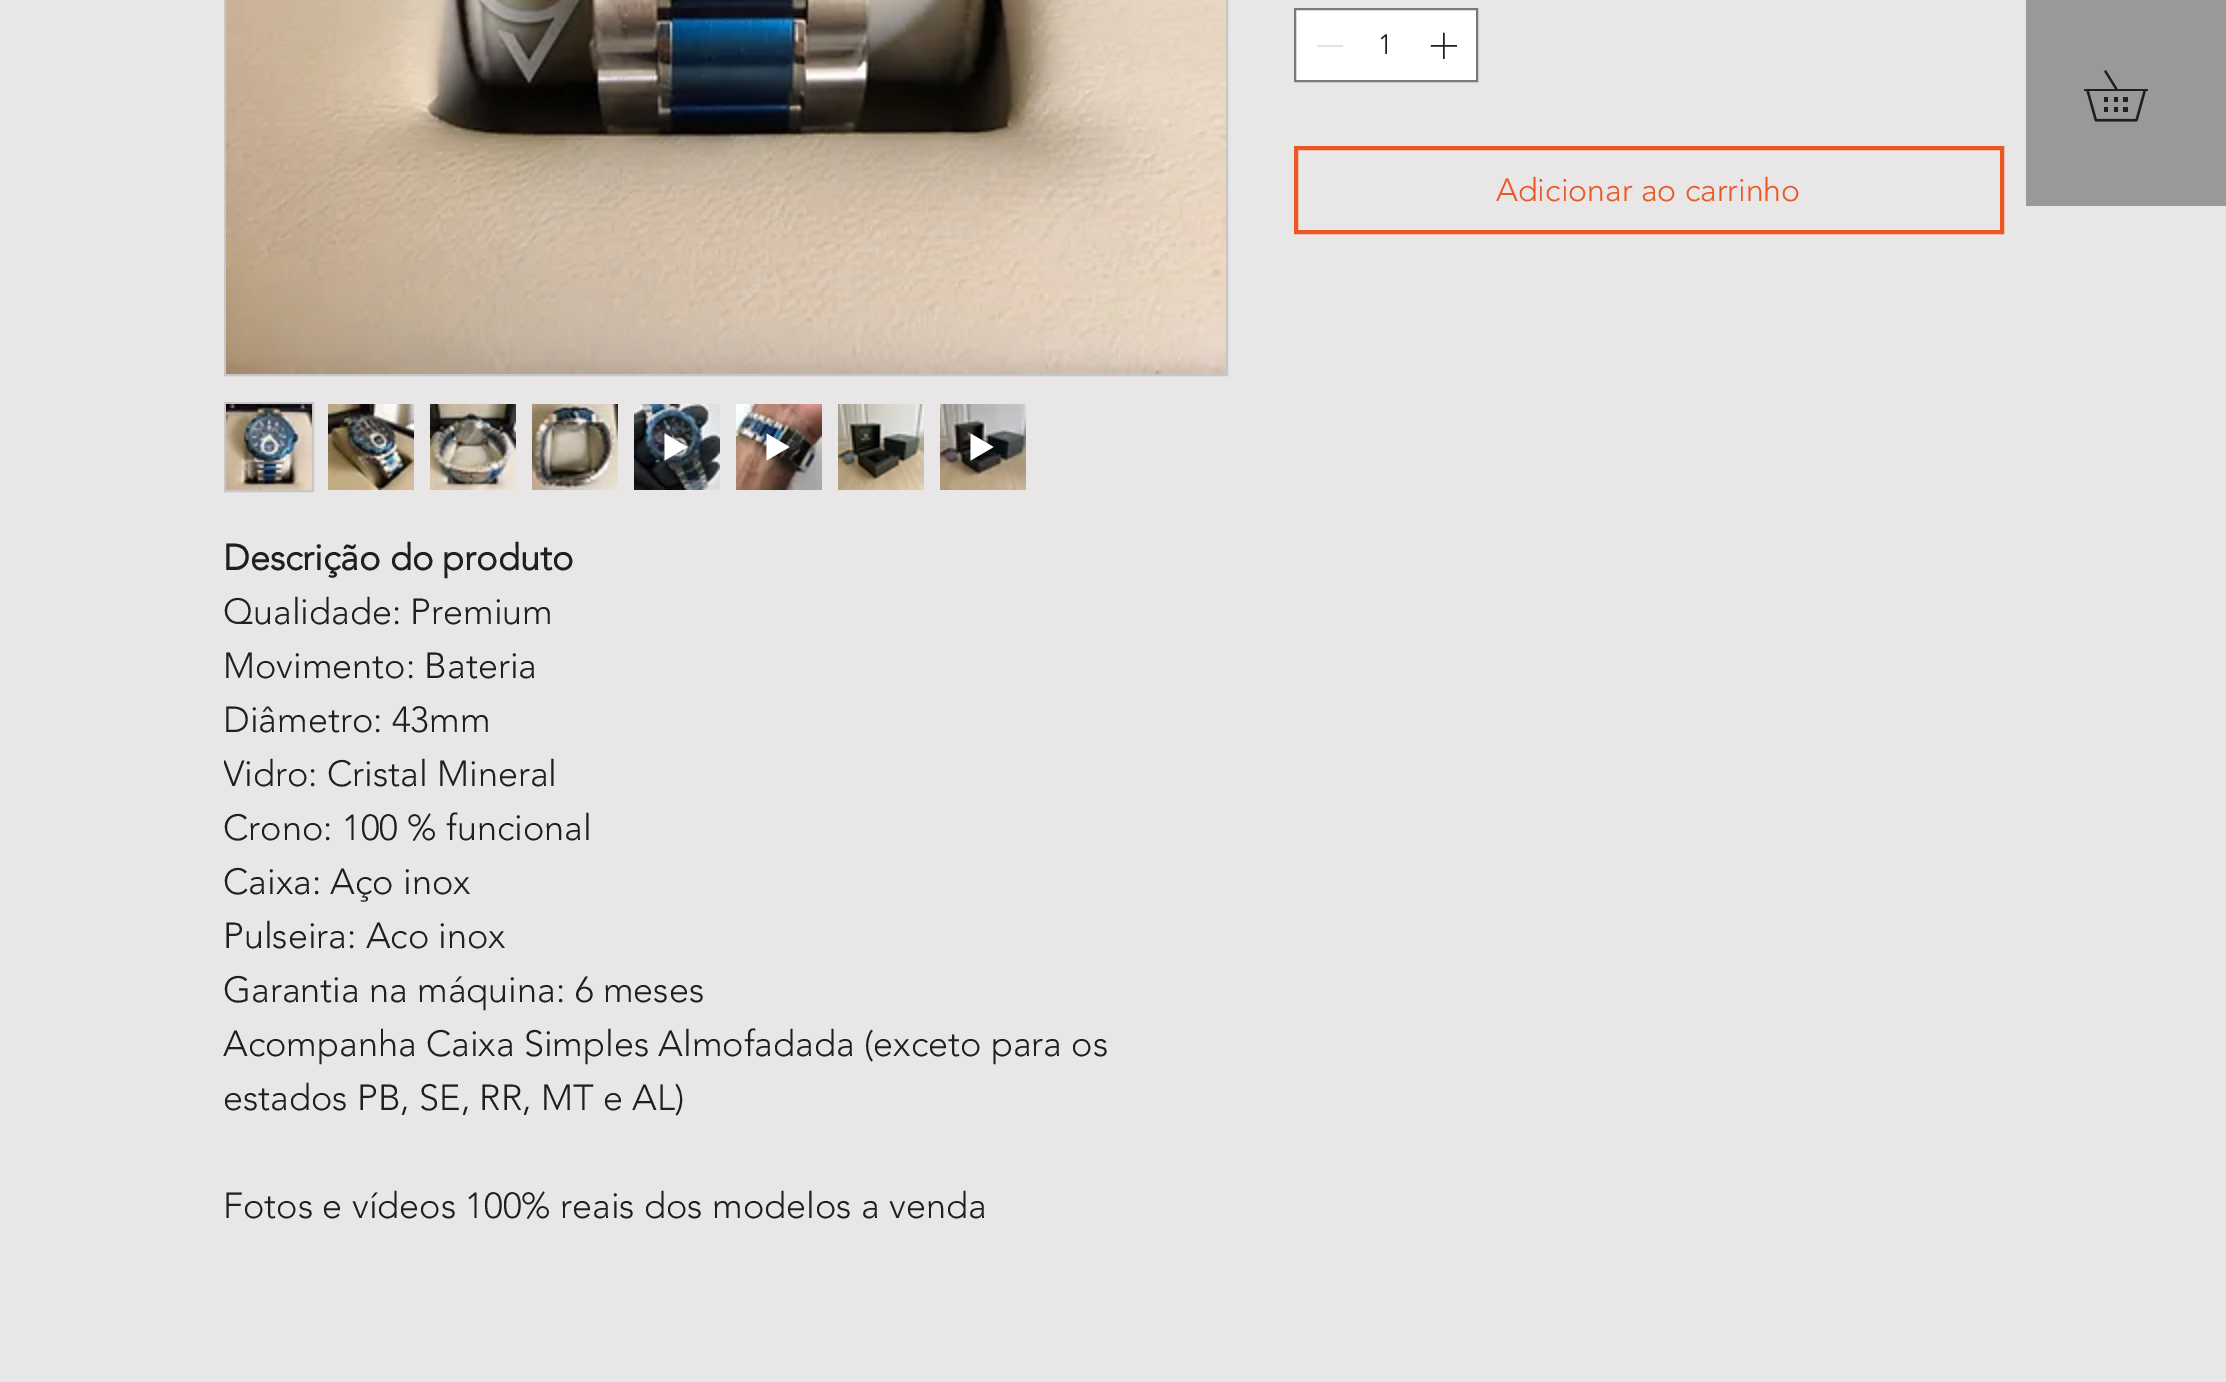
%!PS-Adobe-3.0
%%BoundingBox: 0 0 2226 1382
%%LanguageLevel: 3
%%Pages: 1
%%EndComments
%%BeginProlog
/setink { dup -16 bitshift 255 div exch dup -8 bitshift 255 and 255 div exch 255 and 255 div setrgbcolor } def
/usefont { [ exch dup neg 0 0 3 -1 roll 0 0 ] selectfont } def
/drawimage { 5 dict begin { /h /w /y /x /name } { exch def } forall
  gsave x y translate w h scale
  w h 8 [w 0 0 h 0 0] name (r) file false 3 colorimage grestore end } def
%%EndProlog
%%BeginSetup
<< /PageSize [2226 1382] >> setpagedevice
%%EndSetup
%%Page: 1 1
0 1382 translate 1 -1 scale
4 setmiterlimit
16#E8E6E6 setink
0 0 2226 1382 rectfill
16#FFFFFF setink
1295 9 moveto 1477 9 lineto 1477 81 lineto 1295 81 lineto closepath gsave fill grestore
16#797979 setink
2 setlinewidth
stroke
16#E3E3E3 setink
1317 45 26 2 rectfill
/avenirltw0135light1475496-Light 28 usefont
16#1F1F1F setink
1378 54 moveto (1) show
(img1.raw) 1430 32 27 27 drawimage
16#EA5823 setink
4 setlinewidth
1296 148 706 84 rectstroke
/avenirltw0135light1475496-Light 32 usefont
1496 201 moveto (Adicionar ao carrinho) show
16#C7C7C7 setink
2 setlinewidth
225 -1 1002 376 rectstroke
(img2.raw) 226 0 1000 374 drawimage
225 403 88 88 rectstroke
(img3.raw) 226 404 86 86 drawimage
(img4.raw) 328 404 86 86 drawimage
(img5.raw) 430 404 86 86 drawimage
(img6.raw) 532 404 86 86 drawimage
(img7.raw) 634 404 86 86 drawimage
16#FFFFFF setink
664.5 433.5 moveto 664.5 460.5 lineto 687.5 447 lineto closepath fill
(img8.raw) 736 404 86 86 drawimage
766.5 433.5 moveto 766.5 460.5 lineto 789.5 447 lineto closepath fill
(img9.raw) 838 404 86 86 drawimage
(img10.raw) 940 404 86 86 drawimage
970.5 433.5 moveto 970.5 460.5 lineto 993.5 447 lineto closepath fill
/avenirltw0135light1475496-Bold 36 usefont
16#1F1F1F setink
223 570 moveto (Descrição do produto) show
/avenirltw0135light1475496-Light 36 usefont
[
    [(Qualidade: Premium) 223 624]
    [(Movimento: Bateria) 223 678]
    [(Diâmetro: 43mm) 223 732]
] { aload pop moveto show } forall
gsave
224 532 1000 702 rectclip
223 786 moveto (Vidro: Cristal Mineral) show
grestore
[
    [(Crono: 100 % funcional) 223 840]
    [(Caixa: Aço inox) 223 894]
    [(Pulseira: Aco inox) 223 948]
    [(Garantia na máquina: 6 meses) 223 1002]
    [(Acompanha Caixa Simples Almofadada \(exceto para os) 223 1056]
    [(estados PB, SE, RR, MT e AL\)) 223 1110]
    [(Fotos e vídeos 100% reais dos modelos a venda) 223 1218]
] { aload pop moveto show } forall
16#999997 setink
2026 0 200 206 rectfill
(img11.raw) 2084 70 64 52 drawimage
showpage
%%EOF
